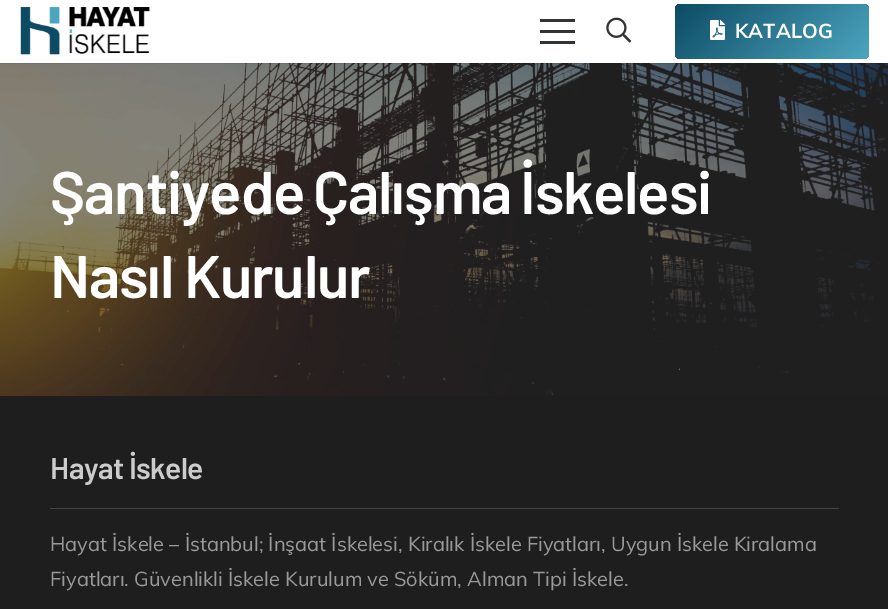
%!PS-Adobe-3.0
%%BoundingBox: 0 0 888 609
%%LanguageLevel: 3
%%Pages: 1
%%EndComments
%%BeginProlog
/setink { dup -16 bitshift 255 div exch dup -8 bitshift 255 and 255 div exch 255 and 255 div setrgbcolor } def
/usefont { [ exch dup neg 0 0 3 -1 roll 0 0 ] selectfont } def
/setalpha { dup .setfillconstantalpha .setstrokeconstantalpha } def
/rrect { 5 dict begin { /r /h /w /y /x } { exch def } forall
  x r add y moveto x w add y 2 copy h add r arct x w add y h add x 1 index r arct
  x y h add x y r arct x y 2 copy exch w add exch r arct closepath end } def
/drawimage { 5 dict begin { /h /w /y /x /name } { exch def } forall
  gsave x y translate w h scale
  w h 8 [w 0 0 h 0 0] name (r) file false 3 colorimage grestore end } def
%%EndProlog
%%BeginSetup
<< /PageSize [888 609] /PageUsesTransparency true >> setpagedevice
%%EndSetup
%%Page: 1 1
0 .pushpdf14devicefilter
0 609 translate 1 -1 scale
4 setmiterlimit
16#FFFFFF setink
0 0 888 609 rectfill
(img4.raw) 0 63 888 333 drawimage
0.08 setalpha
16#000000 setink
0 62 moveto 0 64 lineto 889 64 lineto 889 1 lineto 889 62 lineto closepath fill
1 setalpha
16#FFFFFF setink
0 62 888 1 rectfill
(img1.raw) 20 7 130 48 drawimage
[
    [540 30 35 3 16#333333]
    [540 19 35 3 16#333333]
    [540 41 35 3 16#333333]
] { aload pop setink rectfill } forall
(img2.raw) 606 17 26 26 drawimage
gsave 675 4 194 55 6 rrect clip newpath
<< /ShadingType 2 /ColorSpace /DeviceRGB /Coords [710 -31 834 93] /Extend [true true] /Function << /FunctionType 2 /Domain [0 1] /C0 [0.051 0.294 0.392] /C1 [0.298 0.647 0.749] /N 1 >> >> shfill grestore
(img3.raw) 710 20 15 20 drawimage
/Muli-Bold 20 usefont
16#FFFFFF setink
735 38 moveto (KATALOG) show
/Barlow-SemiBold 60 usefont
50 214 moveto -2 0 32 -1.2 0 (Şantiyede Çalışma İskelesi) awidthshow
50 298 moveto -1.2 0 (Nasıl Kurulur) ashow
16#1E1E1E setink
0 396 888 213 rectfill
/Barlow-SemiBold 30 usefont
16#CCCCCC setink
50 479 moveto -0.6 0 (Hayat İskele) ashow
16#444444 setink
50 508 789 1 rectfill
/Muli-Regular 20 usefont
16#999999 setink
50 551 moveto (Hayat İskele – İstanbul; İnşaat İskelesi, Kiralık İskele Fiyatları, Uygun İskele Kiralama) show
50 586 moveto (Fiyatları. Güvenlikli İskele Kurulum ve Söküm, Alman Tipi İskele.) show
.poppdf14devicefilter showpage
%%EOF
